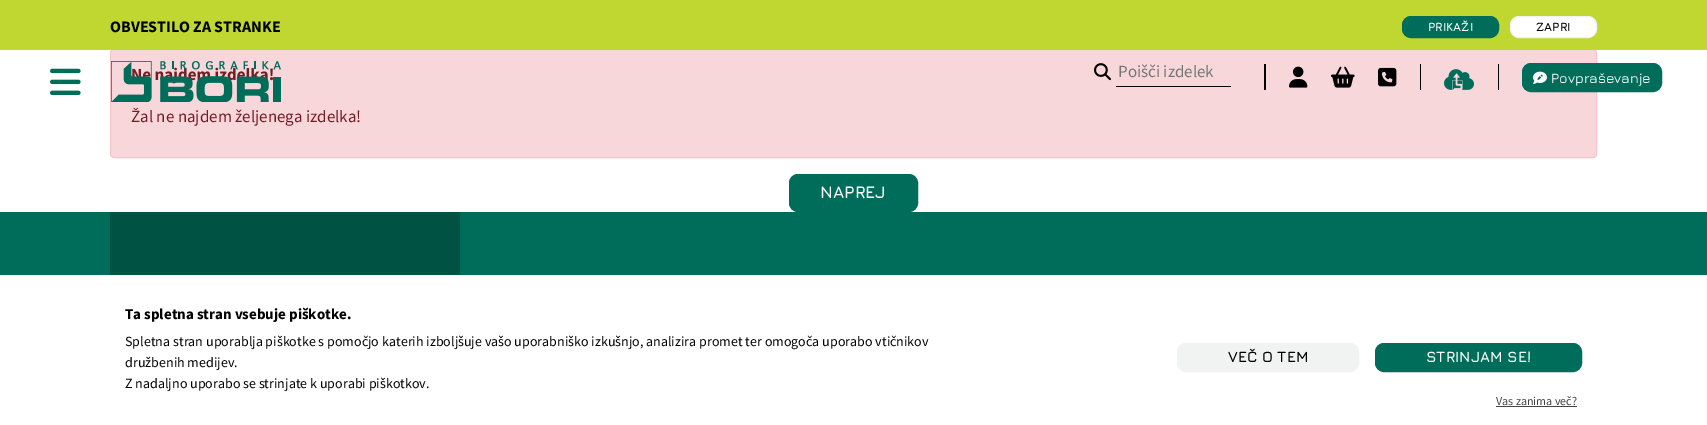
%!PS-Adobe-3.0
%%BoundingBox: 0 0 1707 425
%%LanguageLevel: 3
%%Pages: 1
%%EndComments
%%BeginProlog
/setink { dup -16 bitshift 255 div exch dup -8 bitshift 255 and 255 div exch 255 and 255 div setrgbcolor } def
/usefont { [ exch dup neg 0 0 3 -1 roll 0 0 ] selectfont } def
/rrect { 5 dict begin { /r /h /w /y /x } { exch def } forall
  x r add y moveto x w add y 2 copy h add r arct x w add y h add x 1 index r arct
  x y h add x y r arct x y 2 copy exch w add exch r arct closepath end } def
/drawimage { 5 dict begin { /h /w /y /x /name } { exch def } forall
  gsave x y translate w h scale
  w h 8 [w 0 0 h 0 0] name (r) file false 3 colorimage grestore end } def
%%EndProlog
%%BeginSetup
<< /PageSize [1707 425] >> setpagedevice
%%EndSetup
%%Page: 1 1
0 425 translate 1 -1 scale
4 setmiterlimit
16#FFFFFF setink
0 0 1707 425 rectfill
16#F8D7DA setink
110.5 49.5 1486 108 3.5 rrect gsave fill grestore
16#F5C6CB setink
stroke
16#BFD730 setink
0 0 1707 50 rectfill
/SourceSansPro-Bold 16 usefont
16#000000 setink
110 32 moveto (OBVESTILO ZA STRANKE) show
16#006D5A setink
1402.5 16.5 96 21 8.5 rrect gsave fill grestore
stroke
/Jura-Bold 12 usefont
16#FFFFFF setink
1428 31 moveto (PRIKAŽI) show
1510.5 16.5 86 21 8.5 rrect gsave fill grestore
16#F1F2F2 setink
stroke
16#000000 setink
1536 31 moveto (ZAPRI) show
/SourceSansPro-Bold 17 usefont
16#721C24 setink
131 80 moveto (Ne najdem izdelka!) show
/SourceSansPro-Regular 17 usefont
131 122 moveto (Žal ne najdem željenega izdelka!) show
16#006D5A setink
789.5 174.5 128 37 8.5 rrect gsave fill grestore
stroke
/Jura-Bold 17 usefont
16#FFFFFF setink
820 198 moveto (NAPREJ) show
(img1.raw) 50 68 31 27 drawimage
(img2.raw) 111 61 170 41 drawimage
(img3.raw) 1094 63 17 18 drawimage
16#000000 setink
1116 86 115 1 rectfill
/SourceSansPro-Regular 17 usefont
16#757575 setink
1118 77 moveto (Poišči izdelek) show
16#000000 setink
1264 64 2 26 rectfill
(img4.raw) 1289 66 19 22 drawimage
(img5.raw) 1331 66 24 22 drawimage
(img6.raw) 1378 67 19 20 drawimage
1420 64 1 26 rectfill
(img7.raw) 1444 69 30 21 drawimage
1498 64 1 26 rectfill
16#006D5A setink
1522.5 63.5 139 28 8.5 rrect gsave fill grestore
stroke
(img8.raw) 1533 71 14 13 drawimage
/Jura-Medium 14 usefont
16#FFFFFF setink
1551 83 moveto (Povpraševanje) show
16#006D5A setink
0 212 1707 63 rectfill
16#005243 setink
110 212 350 63 rectfill
/SourceSansPro-Bold 15 usefont
16#000000 setink
125 319 moveto (Ta spletna stran vsebuje piškotke.) show
/SourceSansPro-Regular 14 usefont
[
    [(Spletna stran uporablja piškotke s pomočjo katerih izboljšuje vašo uporabniško izkušnjo, analizira promet ter omogoča uporabo vtičnikov) 125 346]
    [(družbenih medijev.) 125 367]
    [(Z nadaljno uporabo se strinjate k uporabi piškotkov.) 125 388]
] { aload pop moveto show } forall
16#F1F2F2 setink
1177.5 343.5 181 28 8.5 rrect gsave fill grestore
stroke
/Jura-Bold 15 usefont
16#000000 setink
1228 362 moveto (VEČ O TEM) show
16#006D5A setink
1375.5 343.5 206 28 8.5 rrect gsave fill grestore
stroke
16#FFFFFF setink
1426 362 moveto (STRINJAM SE!) show
/SourceSansPro-Regular 12 usefont
16#444444 setink
1496 405 moveto (Vas zanima več?) show
1496 406 81 1 rectfill
showpage
%%EOF
